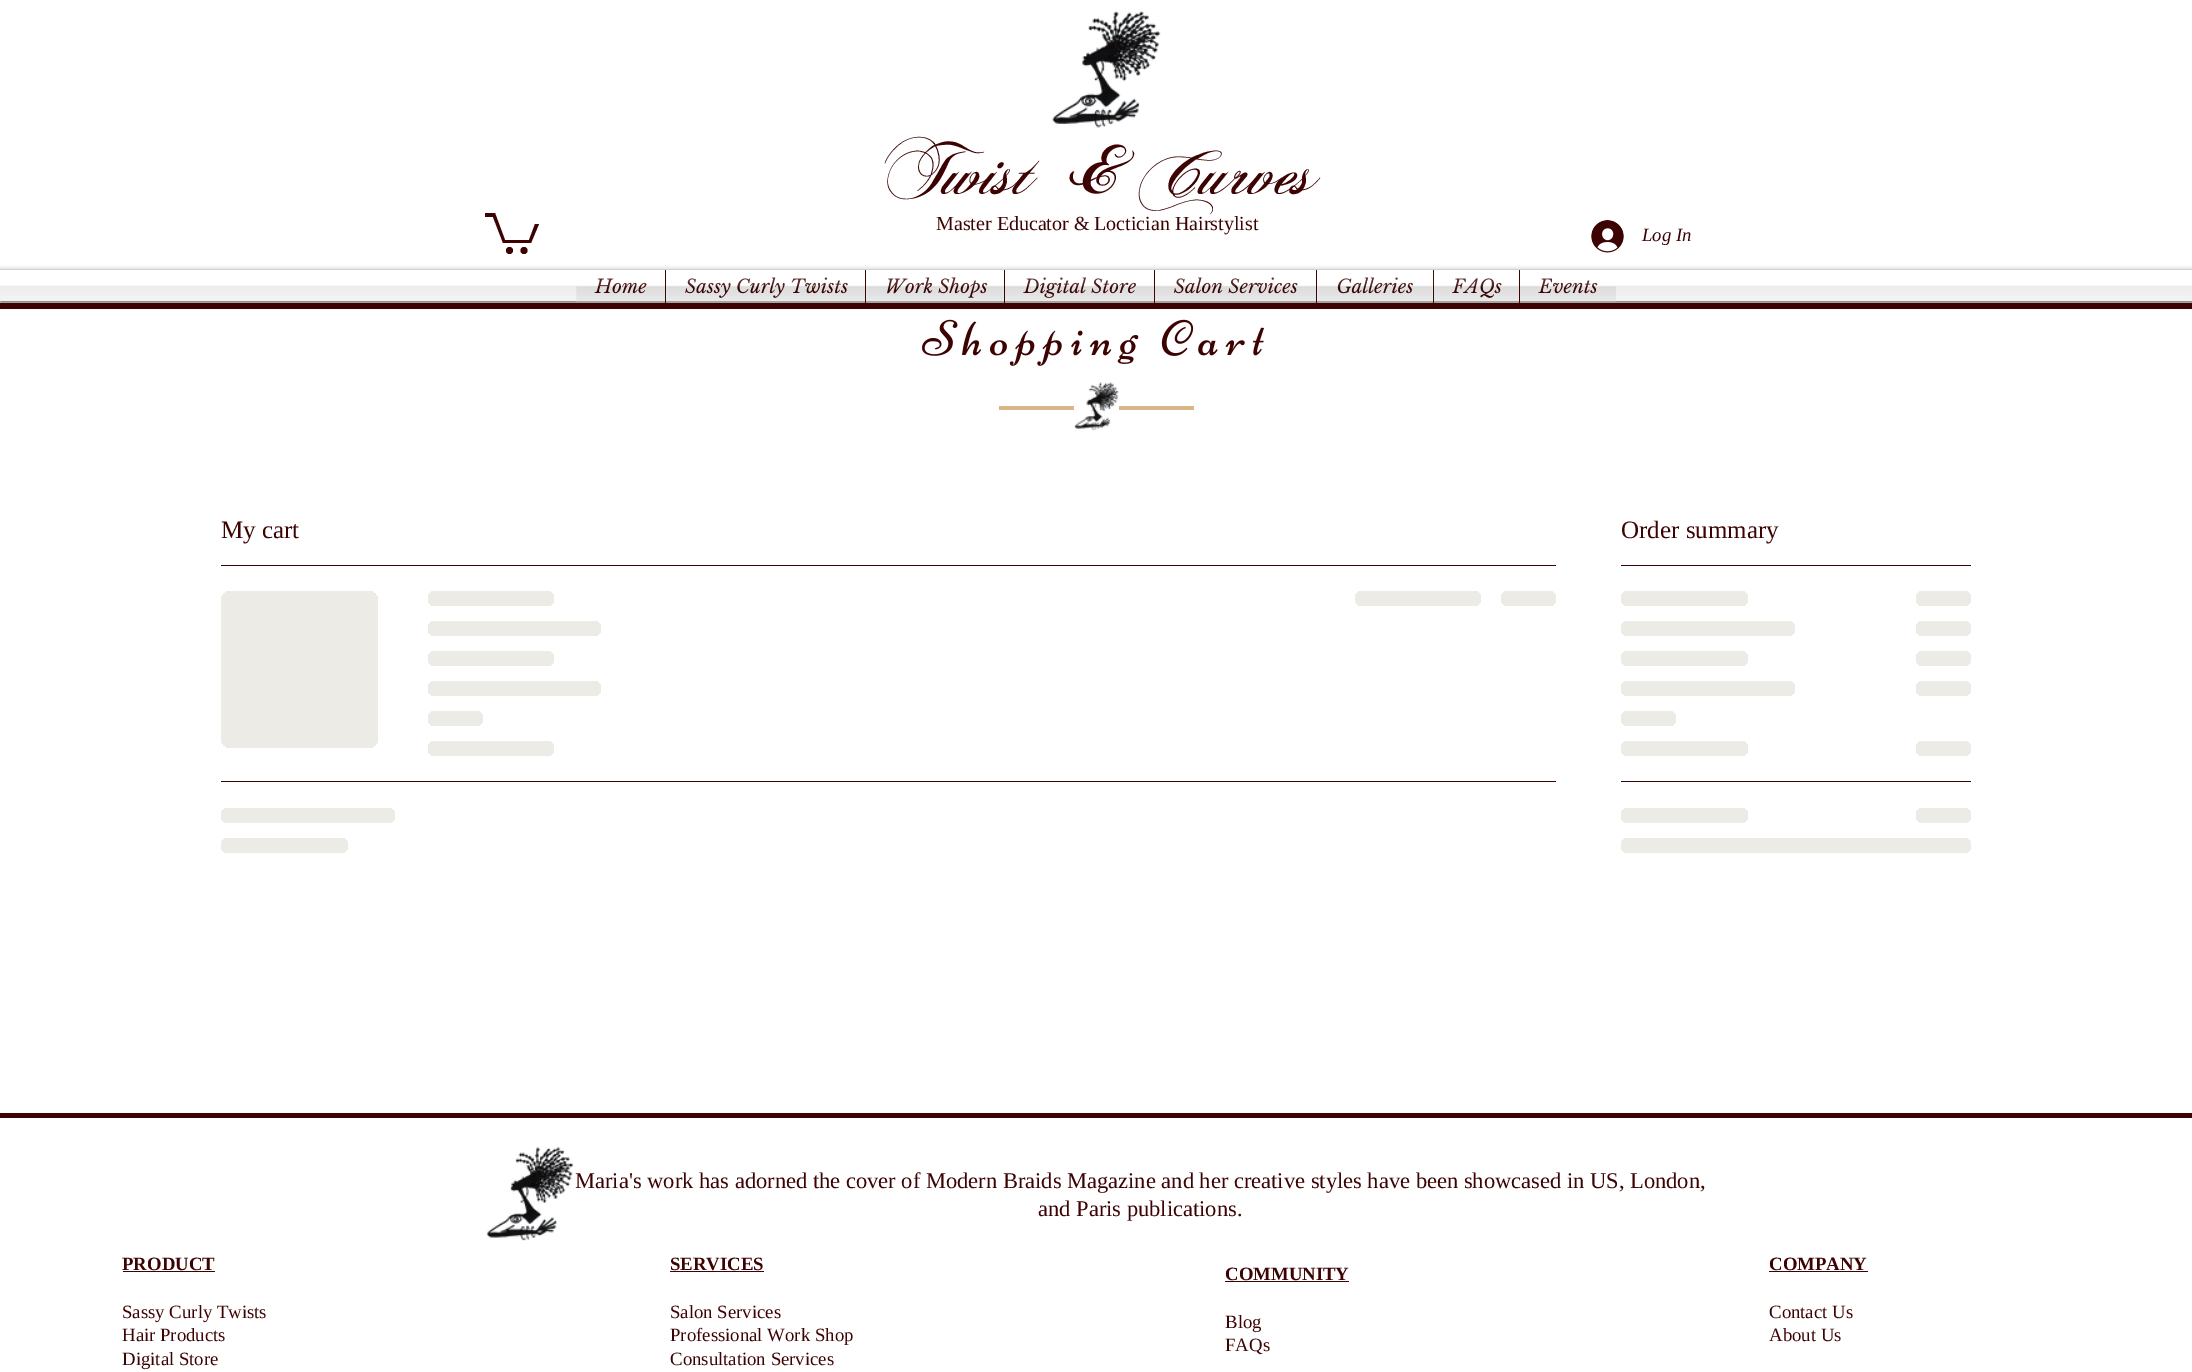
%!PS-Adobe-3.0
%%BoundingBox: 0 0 2192 1372
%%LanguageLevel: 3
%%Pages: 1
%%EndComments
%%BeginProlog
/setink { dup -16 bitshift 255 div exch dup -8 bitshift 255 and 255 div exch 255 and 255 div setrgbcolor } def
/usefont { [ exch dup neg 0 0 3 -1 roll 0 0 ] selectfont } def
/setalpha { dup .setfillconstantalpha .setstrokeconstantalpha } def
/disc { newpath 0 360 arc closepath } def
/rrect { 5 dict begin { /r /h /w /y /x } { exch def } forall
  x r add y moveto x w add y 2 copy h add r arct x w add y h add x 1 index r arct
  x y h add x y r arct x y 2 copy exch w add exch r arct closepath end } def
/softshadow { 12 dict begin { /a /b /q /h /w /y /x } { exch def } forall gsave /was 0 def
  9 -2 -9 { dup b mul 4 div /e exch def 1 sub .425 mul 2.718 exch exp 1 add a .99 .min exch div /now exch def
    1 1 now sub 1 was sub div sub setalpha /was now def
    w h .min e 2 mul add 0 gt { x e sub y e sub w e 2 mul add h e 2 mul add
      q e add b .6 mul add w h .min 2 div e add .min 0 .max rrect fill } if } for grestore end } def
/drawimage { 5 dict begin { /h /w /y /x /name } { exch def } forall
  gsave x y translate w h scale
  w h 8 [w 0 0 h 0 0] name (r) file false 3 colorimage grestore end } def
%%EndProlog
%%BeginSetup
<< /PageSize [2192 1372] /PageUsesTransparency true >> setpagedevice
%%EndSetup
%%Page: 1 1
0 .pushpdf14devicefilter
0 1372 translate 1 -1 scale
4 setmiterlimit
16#FFFFFF setink
0 0 2192 1372 rectfill
(img1.raw) 1052 11 109 117 drawimage
/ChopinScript-MediumItalic 68.75 usefont
16#3D0303 setink
877 193 moveto (Twist) show
1065 193 moveto (&) show
1138 193 moveto (Curves) show
539 224 moveto 531 243 lineto 503 243 lineto 493 217 lineto 485 217 lineto 485 213 lineto 495 213 lineto 505 240 lineto 529 240 lineto 535 224 lineto fill
524 250.5 3.5 disc fill
509.5 250.5 3.5 disc fill
/LiberationSerif-Regular 20 usefont
936 230 moveto (Master Educator & Loctician Hairstylist) show
(img2.raw) 1591 220 33 33 drawimage
/LiberationSerif-Italic 18.75 usefont
1642 241 moveto (Log In) show
gsave
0 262 moveto 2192 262 lineto 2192 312 lineto 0 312 lineto closepath 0 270 moveto 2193 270 lineto 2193 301 lineto 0 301 lineto closepath eoclip newpath
16#000000 setink
0 271 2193 32 0 2.5 0.6 softshadow
grestore
(img3.raw) 0 285 2192 16 drawimage
/LibreBaskerville-Italic 18.75 usefont
595 293 moveto (Home) show
(img4.raw) 576 278 89 24 drawimage
665 270 1 33 rectfill
685 293 moveto (Sassy Curly Twists) show
(img5.raw) 666 277 199 25 drawimage
865 270 1 33 rectfill
885 293 moveto (Work Shops) show
(img6.raw) 866 277 138 25 drawimage
1004 270 1 33 rectfill
1024 293 moveto (Digital Store) show
(img7.raw) 1005 277 149 25 drawimage
1154 270 1 33 rectfill
1174 293 moveto (Salon Services) show
(img8.raw) 1155 277 161 25 drawimage
1316 270 1 33 rectfill
1337 293 moveto (Galleries) show
(img9.raw) 1317 277 116 25 drawimage
1433 270 1 33 rectfill
1453 293 moveto (FAQs) show
(img10.raw) 1433 270 86 32 drawimage
1519 270 1 33 rectfill
1539 293 moveto (Events) show
(img11.raw) 1520 278 96 24 drawimage
0 303 2192 6 rectfill
(img12.raw) 922 319 342 47 drawimage
16#D9B688 setink
999 406 75 4 rectfill
(img13.raw) 1074 382 45 49 drawimage
1119 406 75 4 rectfill
16#3D0303 setink
221 565 1335 1 rectfill
/LiberationSerif-Regular 25 usefont
221 538 moveto (My cart) show
gsave 221 591 157 157 10 rrect clip newpath
<< /ShadingType 2 /ColorSpace /DeviceRGB /Coords [221 669 846 669] /Extend [true true] /Function << /FunctionType 3 /Domain [0 1] /Functions [<< /FunctionType 2 /Domain [0 1] /C0 [0.929 0.922 0.902] /C1 [0.929 0.922 0.902] /N 1 >> << /FunctionType 2 /Domain [0 1] /C0 [0.929 0.922 0.902] /C1 [0.863 0.843 0.8] /N 1 >> << /FunctionType 2 /Domain [0 1] /C0 [0.863 0.843 0.8] /C1 [0.929 0.922 0.902] /N 1 >> << /FunctionType 2 /Domain [0 1] /C0 [0.929 0.922 0.902] /C1 [0.929 0.922 0.902] /N 1 >>] /Bounds [0.25 0.37 0.63] /Encode [0 1 0 1 0 1 0 1] >> >> shfill grestore
gsave 428 591 126 15 7.5 rrect clip newpath
<< /ShadingType 2 /ColorSpace /DeviceRGB /Coords [428 599 933 599] /Extend [true true] /Function << /FunctionType 3 /Domain [0 1] /Functions [<< /FunctionType 2 /Domain [0 1] /C0 [0.929 0.922 0.902] /C1 [0.929 0.922 0.902] /N 1 >> << /FunctionType 2 /Domain [0 1] /C0 [0.929 0.922 0.902] /C1 [0.863 0.843 0.8] /N 1 >> << /FunctionType 2 /Domain [0 1] /C0 [0.863 0.843 0.8] /C1 [0.929 0.922 0.902] /N 1 >> << /FunctionType 2 /Domain [0 1] /C0 [0.929 0.922 0.902] /C1 [0.929 0.922 0.902] /N 1 >>] /Bounds [0.25 0.37 0.63] /Encode [0 1 0 1 0 1 0 1] >> >> shfill grestore
gsave 428 621 173 15 7.5 rrect clip newpath
<< /ShadingType 2 /ColorSpace /DeviceRGB /Coords [428 629 1123 629] /Extend [true true] /Function << /FunctionType 3 /Domain [0 1] /Functions [<< /FunctionType 2 /Domain [0 1] /C0 [0.929 0.922 0.902] /C1 [0.929 0.922 0.902] /N 1 >> << /FunctionType 2 /Domain [0 1] /C0 [0.929 0.922 0.902] /C1 [0.863 0.843 0.8] /N 1 >> << /FunctionType 2 /Domain [0 1] /C0 [0.863 0.843 0.8] /C1 [0.929 0.922 0.902] /N 1 >> << /FunctionType 2 /Domain [0 1] /C0 [0.929 0.922 0.902] /C1 [0.929 0.922 0.902] /N 1 >>] /Bounds [0.25 0.37 0.63] /Encode [0 1 0 1 0 1 0 1] >> >> shfill grestore
gsave 428 651 126 15 7.5 rrect clip newpath
<< /ShadingType 2 /ColorSpace /DeviceRGB /Coords [428 659 933 659] /Extend [true true] /Function << /FunctionType 3 /Domain [0 1] /Functions [<< /FunctionType 2 /Domain [0 1] /C0 [0.929 0.922 0.902] /C1 [0.929 0.922 0.902] /N 1 >> << /FunctionType 2 /Domain [0 1] /C0 [0.929 0.922 0.902] /C1 [0.863 0.843 0.8] /N 1 >> << /FunctionType 2 /Domain [0 1] /C0 [0.863 0.843 0.8] /C1 [0.929 0.922 0.902] /N 1 >> << /FunctionType 2 /Domain [0 1] /C0 [0.929 0.922 0.902] /C1 [0.929 0.922 0.902] /N 1 >>] /Bounds [0.25 0.37 0.63] /Encode [0 1 0 1 0 1 0 1] >> >> shfill grestore
gsave 428 681 173 15 7.5 rrect clip newpath
<< /ShadingType 2 /ColorSpace /DeviceRGB /Coords [428 689 1123 689] /Extend [true true] /Function << /FunctionType 3 /Domain [0 1] /Functions [<< /FunctionType 2 /Domain [0 1] /C0 [0.929 0.922 0.902] /C1 [0.929 0.922 0.902] /N 1 >> << /FunctionType 2 /Domain [0 1] /C0 [0.929 0.922 0.902] /C1 [0.863 0.843 0.8] /N 1 >> << /FunctionType 2 /Domain [0 1] /C0 [0.863 0.843 0.8] /C1 [0.929 0.922 0.902] /N 1 >> << /FunctionType 2 /Domain [0 1] /C0 [0.929 0.922 0.902] /C1 [0.929 0.922 0.902] /N 1 >>] /Bounds [0.25 0.37 0.63] /Encode [0 1 0 1 0 1 0 1] >> >> shfill grestore
gsave 428 711 55 15 7.5 rrect clip newpath
<< /ShadingType 2 /ColorSpace /DeviceRGB /Coords [428 719 648 719] /Extend [true true] /Function << /FunctionType 3 /Domain [0 1] /Functions [<< /FunctionType 2 /Domain [0 1] /C0 [0.929 0.922 0.902] /C1 [0.929 0.922 0.902] /N 1 >> << /FunctionType 2 /Domain [0 1] /C0 [0.929 0.922 0.902] /C1 [0.863 0.843 0.8] /N 1 >> << /FunctionType 2 /Domain [0 1] /C0 [0.863 0.843 0.8] /C1 [0.929 0.922 0.902] /N 1 >> << /FunctionType 2 /Domain [0 1] /C0 [0.929 0.922 0.902] /C1 [0.929 0.922 0.902] /N 1 >>] /Bounds [0.25 0.37 0.63] /Encode [0 1 0 1 0 1 0 1] >> >> shfill grestore
gsave 428 741 126 15 7.5 rrect clip newpath
<< /ShadingType 2 /ColorSpace /DeviceRGB /Coords [428 749 933 749] /Extend [true true] /Function << /FunctionType 3 /Domain [0 1] /Functions [<< /FunctionType 2 /Domain [0 1] /C0 [0.929 0.922 0.902] /C1 [0.929 0.922 0.902] /N 1 >> << /FunctionType 2 /Domain [0 1] /C0 [0.929 0.922 0.902] /C1 [0.863 0.843 0.8] /N 1 >> << /FunctionType 2 /Domain [0 1] /C0 [0.863 0.843 0.8] /C1 [0.929 0.922 0.902] /N 1 >> << /FunctionType 2 /Domain [0 1] /C0 [0.929 0.922 0.902] /C1 [0.929 0.922 0.902] /N 1 >>] /Bounds [0.25 0.37 0.63] /Encode [0 1 0 1 0 1 0 1] >> >> shfill grestore
gsave 1355 591 126 15 7.5 rrect clip newpath
<< /ShadingType 2 /ColorSpace /DeviceRGB /Coords [1355 599 1860 599] /Extend [true true] /Function << /FunctionType 3 /Domain [0 1] /Functions [<< /FunctionType 2 /Domain [0 1] /C0 [0.929 0.922 0.902] /C1 [0.929 0.922 0.902] /N 1 >> << /FunctionType 2 /Domain [0 1] /C0 [0.929 0.922 0.902] /C1 [0.863 0.843 0.8] /N 1 >> << /FunctionType 2 /Domain [0 1] /C0 [0.863 0.843 0.8] /C1 [0.929 0.922 0.902] /N 1 >> << /FunctionType 2 /Domain [0 1] /C0 [0.929 0.922 0.902] /C1 [0.929 0.922 0.902] /N 1 >>] /Bounds [0.25 0.37 0.63] /Encode [0 1 0 1 0 1 0 1] >> >> shfill grestore
gsave 1501 591 55 15 7.5 rrect clip newpath
<< /ShadingType 2 /ColorSpace /DeviceRGB /Coords [1501 599 1721 599] /Extend [true true] /Function << /FunctionType 3 /Domain [0 1] /Functions [<< /FunctionType 2 /Domain [0 1] /C0 [0.929 0.922 0.902] /C1 [0.929 0.922 0.902] /N 1 >> << /FunctionType 2 /Domain [0 1] /C0 [0.929 0.922 0.902] /C1 [0.863 0.843 0.8] /N 1 >> << /FunctionType 2 /Domain [0 1] /C0 [0.863 0.843 0.8] /C1 [0.929 0.922 0.902] /N 1 >> << /FunctionType 2 /Domain [0 1] /C0 [0.929 0.922 0.902] /C1 [0.929 0.922 0.902] /N 1 >>] /Bounds [0.25 0.37 0.63] /Encode [0 1 0 1 0 1 0 1] >> >> shfill grestore
221 781 1335 1 rectfill
gsave 221 808 174 15 7.5 rrect clip newpath
<< /ShadingType 2 /ColorSpace /DeviceRGB /Coords [221 815 916 815] /Extend [true true] /Function << /FunctionType 3 /Domain [0 1] /Functions [<< /FunctionType 2 /Domain [0 1] /C0 [0.929 0.922 0.902] /C1 [0.929 0.922 0.902] /N 1 >> << /FunctionType 2 /Domain [0 1] /C0 [0.929 0.922 0.902] /C1 [0.863 0.843 0.8] /N 1 >> << /FunctionType 2 /Domain [0 1] /C0 [0.863 0.843 0.8] /C1 [0.929 0.922 0.902] /N 1 >> << /FunctionType 2 /Domain [0 1] /C0 [0.929 0.922 0.902] /C1 [0.929 0.922 0.902] /N 1 >>] /Bounds [0.25 0.37 0.63] /Encode [0 1 0 1 0 1 0 1] >> >> shfill grestore
gsave 221 838 127 15 7.5 rrect clip newpath
<< /ShadingType 2 /ColorSpace /DeviceRGB /Coords [221 845 726 845] /Extend [true true] /Function << /FunctionType 3 /Domain [0 1] /Functions [<< /FunctionType 2 /Domain [0 1] /C0 [0.929 0.922 0.902] /C1 [0.929 0.922 0.902] /N 1 >> << /FunctionType 2 /Domain [0 1] /C0 [0.929 0.922 0.902] /C1 [0.863 0.843 0.8] /N 1 >> << /FunctionType 2 /Domain [0 1] /C0 [0.863 0.843 0.8] /C1 [0.929 0.922 0.902] /N 1 >> << /FunctionType 2 /Domain [0 1] /C0 [0.929 0.922 0.902] /C1 [0.929 0.922 0.902] /N 1 >>] /Bounds [0.25 0.37 0.63] /Encode [0 1 0 1 0 1 0 1] >> >> shfill grestore
1621 565 350 1 rectfill
1621 538 moveto (Order summary) show
gsave 1621 591 127 15 7.5 rrect clip newpath
<< /ShadingType 2 /ColorSpace /DeviceRGB /Coords [1621 599 2126 599] /Extend [true true] /Function << /FunctionType 3 /Domain [0 1] /Functions [<< /FunctionType 2 /Domain [0 1] /C0 [0.929 0.922 0.902] /C1 [0.929 0.922 0.902] /N 1 >> << /FunctionType 2 /Domain [0 1] /C0 [0.929 0.922 0.902] /C1 [0.863 0.843 0.8] /N 1 >> << /FunctionType 2 /Domain [0 1] /C0 [0.863 0.843 0.8] /C1 [0.929 0.922 0.902] /N 1 >> << /FunctionType 2 /Domain [0 1] /C0 [0.929 0.922 0.902] /C1 [0.929 0.922 0.902] /N 1 >>] /Bounds [0.25 0.37 0.63] /Encode [0 1 0 1 0 1 0 1] >> >> shfill grestore
gsave 1916 591 55 15 7.5 rrect clip newpath
<< /ShadingType 2 /ColorSpace /DeviceRGB /Coords [1916 599 2136 599] /Extend [true true] /Function << /FunctionType 3 /Domain [0 1] /Functions [<< /FunctionType 2 /Domain [0 1] /C0 [0.929 0.922 0.902] /C1 [0.929 0.922 0.902] /N 1 >> << /FunctionType 2 /Domain [0 1] /C0 [0.929 0.922 0.902] /C1 [0.863 0.843 0.8] /N 1 >> << /FunctionType 2 /Domain [0 1] /C0 [0.863 0.843 0.8] /C1 [0.929 0.922 0.902] /N 1 >> << /FunctionType 2 /Domain [0 1] /C0 [0.929 0.922 0.902] /C1 [0.929 0.922 0.902] /N 1 >>] /Bounds [0.25 0.37 0.63] /Encode [0 1 0 1 0 1 0 1] >> >> shfill grestore
gsave 1621 621 174 15 7.5 rrect clip newpath
<< /ShadingType 2 /ColorSpace /DeviceRGB /Coords [1621 629 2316 629] /Extend [true true] /Function << /FunctionType 3 /Domain [0 1] /Functions [<< /FunctionType 2 /Domain [0 1] /C0 [0.929 0.922 0.902] /C1 [0.929 0.922 0.902] /N 1 >> << /FunctionType 2 /Domain [0 1] /C0 [0.929 0.922 0.902] /C1 [0.863 0.843 0.8] /N 1 >> << /FunctionType 2 /Domain [0 1] /C0 [0.863 0.843 0.8] /C1 [0.929 0.922 0.902] /N 1 >> << /FunctionType 2 /Domain [0 1] /C0 [0.929 0.922 0.902] /C1 [0.929 0.922 0.902] /N 1 >>] /Bounds [0.25 0.37 0.63] /Encode [0 1 0 1 0 1 0 1] >> >> shfill grestore
gsave 1916 621 55 15 7.5 rrect clip newpath
<< /ShadingType 2 /ColorSpace /DeviceRGB /Coords [1916 629 2136 629] /Extend [true true] /Function << /FunctionType 3 /Domain [0 1] /Functions [<< /FunctionType 2 /Domain [0 1] /C0 [0.929 0.922 0.902] /C1 [0.929 0.922 0.902] /N 1 >> << /FunctionType 2 /Domain [0 1] /C0 [0.929 0.922 0.902] /C1 [0.863 0.843 0.8] /N 1 >> << /FunctionType 2 /Domain [0 1] /C0 [0.863 0.843 0.8] /C1 [0.929 0.922 0.902] /N 1 >> << /FunctionType 2 /Domain [0 1] /C0 [0.929 0.922 0.902] /C1 [0.929 0.922 0.902] /N 1 >>] /Bounds [0.25 0.37 0.63] /Encode [0 1 0 1 0 1 0 1] >> >> shfill grestore
gsave 1621 651 127 15 7.5 rrect clip newpath
<< /ShadingType 2 /ColorSpace /DeviceRGB /Coords [1621 659 2126 659] /Extend [true true] /Function << /FunctionType 3 /Domain [0 1] /Functions [<< /FunctionType 2 /Domain [0 1] /C0 [0.929 0.922 0.902] /C1 [0.929 0.922 0.902] /N 1 >> << /FunctionType 2 /Domain [0 1] /C0 [0.929 0.922 0.902] /C1 [0.863 0.843 0.8] /N 1 >> << /FunctionType 2 /Domain [0 1] /C0 [0.863 0.843 0.8] /C1 [0.929 0.922 0.902] /N 1 >> << /FunctionType 2 /Domain [0 1] /C0 [0.929 0.922 0.902] /C1 [0.929 0.922 0.902] /N 1 >>] /Bounds [0.25 0.37 0.63] /Encode [0 1 0 1 0 1 0 1] >> >> shfill grestore
gsave 1916 651 55 15 7.5 rrect clip newpath
<< /ShadingType 2 /ColorSpace /DeviceRGB /Coords [1916 659 2136 659] /Extend [true true] /Function << /FunctionType 3 /Domain [0 1] /Functions [<< /FunctionType 2 /Domain [0 1] /C0 [0.929 0.922 0.902] /C1 [0.929 0.922 0.902] /N 1 >> << /FunctionType 2 /Domain [0 1] /C0 [0.929 0.922 0.902] /C1 [0.863 0.843 0.8] /N 1 >> << /FunctionType 2 /Domain [0 1] /C0 [0.863 0.843 0.8] /C1 [0.929 0.922 0.902] /N 1 >> << /FunctionType 2 /Domain [0 1] /C0 [0.929 0.922 0.902] /C1 [0.929 0.922 0.902] /N 1 >>] /Bounds [0.25 0.37 0.63] /Encode [0 1 0 1 0 1 0 1] >> >> shfill grestore
gsave 1621 681 174 15 7.5 rrect clip newpath
<< /ShadingType 2 /ColorSpace /DeviceRGB /Coords [1621 689 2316 689] /Extend [true true] /Function << /FunctionType 3 /Domain [0 1] /Functions [<< /FunctionType 2 /Domain [0 1] /C0 [0.929 0.922 0.902] /C1 [0.929 0.922 0.902] /N 1 >> << /FunctionType 2 /Domain [0 1] /C0 [0.929 0.922 0.902] /C1 [0.863 0.843 0.8] /N 1 >> << /FunctionType 2 /Domain [0 1] /C0 [0.863 0.843 0.8] /C1 [0.929 0.922 0.902] /N 1 >> << /FunctionType 2 /Domain [0 1] /C0 [0.929 0.922 0.902] /C1 [0.929 0.922 0.902] /N 1 >>] /Bounds [0.25 0.37 0.63] /Encode [0 1 0 1 0 1 0 1] >> >> shfill grestore
gsave 1916 681 55 15 7.5 rrect clip newpath
<< /ShadingType 2 /ColorSpace /DeviceRGB /Coords [1916 689 2136 689] /Extend [true true] /Function << /FunctionType 3 /Domain [0 1] /Functions [<< /FunctionType 2 /Domain [0 1] /C0 [0.929 0.922 0.902] /C1 [0.929 0.922 0.902] /N 1 >> << /FunctionType 2 /Domain [0 1] /C0 [0.929 0.922 0.902] /C1 [0.863 0.843 0.8] /N 1 >> << /FunctionType 2 /Domain [0 1] /C0 [0.863 0.843 0.8] /C1 [0.929 0.922 0.902] /N 1 >> << /FunctionType 2 /Domain [0 1] /C0 [0.929 0.922 0.902] /C1 [0.929 0.922 0.902] /N 1 >>] /Bounds [0.25 0.37 0.63] /Encode [0 1 0 1 0 1 0 1] >> >> shfill grestore
gsave 1621 711 55 15 7.5 rrect clip newpath
<< /ShadingType 2 /ColorSpace /DeviceRGB /Coords [1621 719 1841 719] /Extend [true true] /Function << /FunctionType 3 /Domain [0 1] /Functions [<< /FunctionType 2 /Domain [0 1] /C0 [0.929 0.922 0.902] /C1 [0.929 0.922 0.902] /N 1 >> << /FunctionType 2 /Domain [0 1] /C0 [0.929 0.922 0.902] /C1 [0.863 0.843 0.8] /N 1 >> << /FunctionType 2 /Domain [0 1] /C0 [0.863 0.843 0.8] /C1 [0.929 0.922 0.902] /N 1 >> << /FunctionType 2 /Domain [0 1] /C0 [0.929 0.922 0.902] /C1 [0.929 0.922 0.902] /N 1 >>] /Bounds [0.25 0.37 0.63] /Encode [0 1 0 1 0 1 0 1] >> >> shfill grestore
gsave 1621 741 127 15 7.5 rrect clip newpath
<< /ShadingType 2 /ColorSpace /DeviceRGB /Coords [1621 749 2126 749] /Extend [true true] /Function << /FunctionType 3 /Domain [0 1] /Functions [<< /FunctionType 2 /Domain [0 1] /C0 [0.929 0.922 0.902] /C1 [0.929 0.922 0.902] /N 1 >> << /FunctionType 2 /Domain [0 1] /C0 [0.929 0.922 0.902] /C1 [0.863 0.843 0.8] /N 1 >> << /FunctionType 2 /Domain [0 1] /C0 [0.863 0.843 0.8] /C1 [0.929 0.922 0.902] /N 1 >> << /FunctionType 2 /Domain [0 1] /C0 [0.929 0.922 0.902] /C1 [0.929 0.922 0.902] /N 1 >>] /Bounds [0.25 0.37 0.63] /Encode [0 1 0 1 0 1 0 1] >> >> shfill grestore
gsave 1916 741 55 15 7.5 rrect clip newpath
<< /ShadingType 2 /ColorSpace /DeviceRGB /Coords [1916 749 2136 749] /Extend [true true] /Function << /FunctionType 3 /Domain [0 1] /Functions [<< /FunctionType 2 /Domain [0 1] /C0 [0.929 0.922 0.902] /C1 [0.929 0.922 0.902] /N 1 >> << /FunctionType 2 /Domain [0 1] /C0 [0.929 0.922 0.902] /C1 [0.863 0.843 0.8] /N 1 >> << /FunctionType 2 /Domain [0 1] /C0 [0.863 0.843 0.8] /C1 [0.929 0.922 0.902] /N 1 >> << /FunctionType 2 /Domain [0 1] /C0 [0.929 0.922 0.902] /C1 [0.929 0.922 0.902] /N 1 >>] /Bounds [0.25 0.37 0.63] /Encode [0 1 0 1 0 1 0 1] >> >> shfill grestore
1621 781 350 1 rectfill
gsave 1621 808 127 15 7.5 rrect clip newpath
<< /ShadingType 2 /ColorSpace /DeviceRGB /Coords [1621 815 2126 815] /Extend [true true] /Function << /FunctionType 3 /Domain [0 1] /Functions [<< /FunctionType 2 /Domain [0 1] /C0 [0.929 0.922 0.902] /C1 [0.929 0.922 0.902] /N 1 >> << /FunctionType 2 /Domain [0 1] /C0 [0.929 0.922 0.902] /C1 [0.863 0.843 0.8] /N 1 >> << /FunctionType 2 /Domain [0 1] /C0 [0.863 0.843 0.8] /C1 [0.929 0.922 0.902] /N 1 >> << /FunctionType 2 /Domain [0 1] /C0 [0.929 0.922 0.902] /C1 [0.929 0.922 0.902] /N 1 >>] /Bounds [0.25 0.37 0.63] /Encode [0 1 0 1 0 1 0 1] >> >> shfill grestore
gsave 1916 808 55 15 7.5 rrect clip newpath
<< /ShadingType 2 /ColorSpace /DeviceRGB /Coords [1916 815 2136 815] /Extend [true true] /Function << /FunctionType 3 /Domain [0 1] /Functions [<< /FunctionType 2 /Domain [0 1] /C0 [0.929 0.922 0.902] /C1 [0.929 0.922 0.902] /N 1 >> << /FunctionType 2 /Domain [0 1] /C0 [0.929 0.922 0.902] /C1 [0.863 0.843 0.8] /N 1 >> << /FunctionType 2 /Domain [0 1] /C0 [0.863 0.843 0.8] /C1 [0.929 0.922 0.902] /N 1 >> << /FunctionType 2 /Domain [0 1] /C0 [0.929 0.922 0.902] /C1 [0.929 0.922 0.902] /N 1 >>] /Bounds [0.25 0.37 0.63] /Encode [0 1 0 1 0 1 0 1] >> >> shfill grestore
gsave 1621 838 350 15 7.5 rrect clip newpath
<< /ShadingType 2 /ColorSpace /DeviceRGB /Coords [1621 845 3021 845] /Extend [true true] /Function << /FunctionType 3 /Domain [0 1] /Functions [<< /FunctionType 2 /Domain [0 1] /C0 [0.929 0.922 0.902] /C1 [0.929 0.922 0.902] /N 1 >> << /FunctionType 2 /Domain [0 1] /C0 [0.929 0.922 0.902] /C1 [0.863 0.843 0.8] /N 1 >> << /FunctionType 2 /Domain [0 1] /C0 [0.863 0.843 0.8] /C1 [0.929 0.922 0.902] /N 1 >> << /FunctionType 2 /Domain [0 1] /C0 [0.929 0.922 0.902] /C1 [0.929 0.922 0.902] /N 1 >>] /Bounds [0.25 0.37 0.63] /Encode [0 1 0 1 0 1 0 1] >> >> shfill grestore
0 1113 2192 5 rectfill
(img14.raw) 486 1147 88 94 drawimage
/LiberationSerif-Regular 22.5 usefont
575 1188 moveto (Maria's work has adorned the cover of Modern Braids Magazine and her creative styles have been showcased in US, London,) show
1038 1216 moveto (and Paris publications.) show
/LiberationSerif-Bold 18.75 usefont
122 1270 moveto (PRODUCT) show
123 1271 92 1 rectfill
/LiberationSerif-Regular 18.75 usefont
[
    [(Sassy Curly Twists) 122 1318]
    [(Hair Products) 122 1341]
    [(Digital Store) 122 1365]
] { aload pop moveto show } forall
/LiberationSerif-Bold 18.75 usefont
670 1270 moveto (SERVICES) show
670 1271 94 1 rectfill
/LiberationSerif-Regular 18.75 usefont
[
    [(Salon Services) 670 1318]
    [(Professional Work Shop) 670 1341]
    [(Consultation Services) 670 1365]
] { aload pop moveto show } forall
/LiberationSerif-Bold 18.75 usefont
1225 1280 moveto (COMMUNITY) show
1225 1281 124 1 rectfill
/LiberationSerif-Regular 18.75 usefont
1225 1328 moveto (Blog) show
1225 1351 moveto (FAQs) show
/LiberationSerif-Bold 18.75 usefont
1769 1270 moveto (COMPANY) show
1769 1271 99 1 rectfill
/LiberationSerif-Regular 18.75 usefont
1769 1318 moveto (Contact Us) show
1769 1341 moveto (About Us) show
.poppdf14devicefilter showpage
%%EOF
